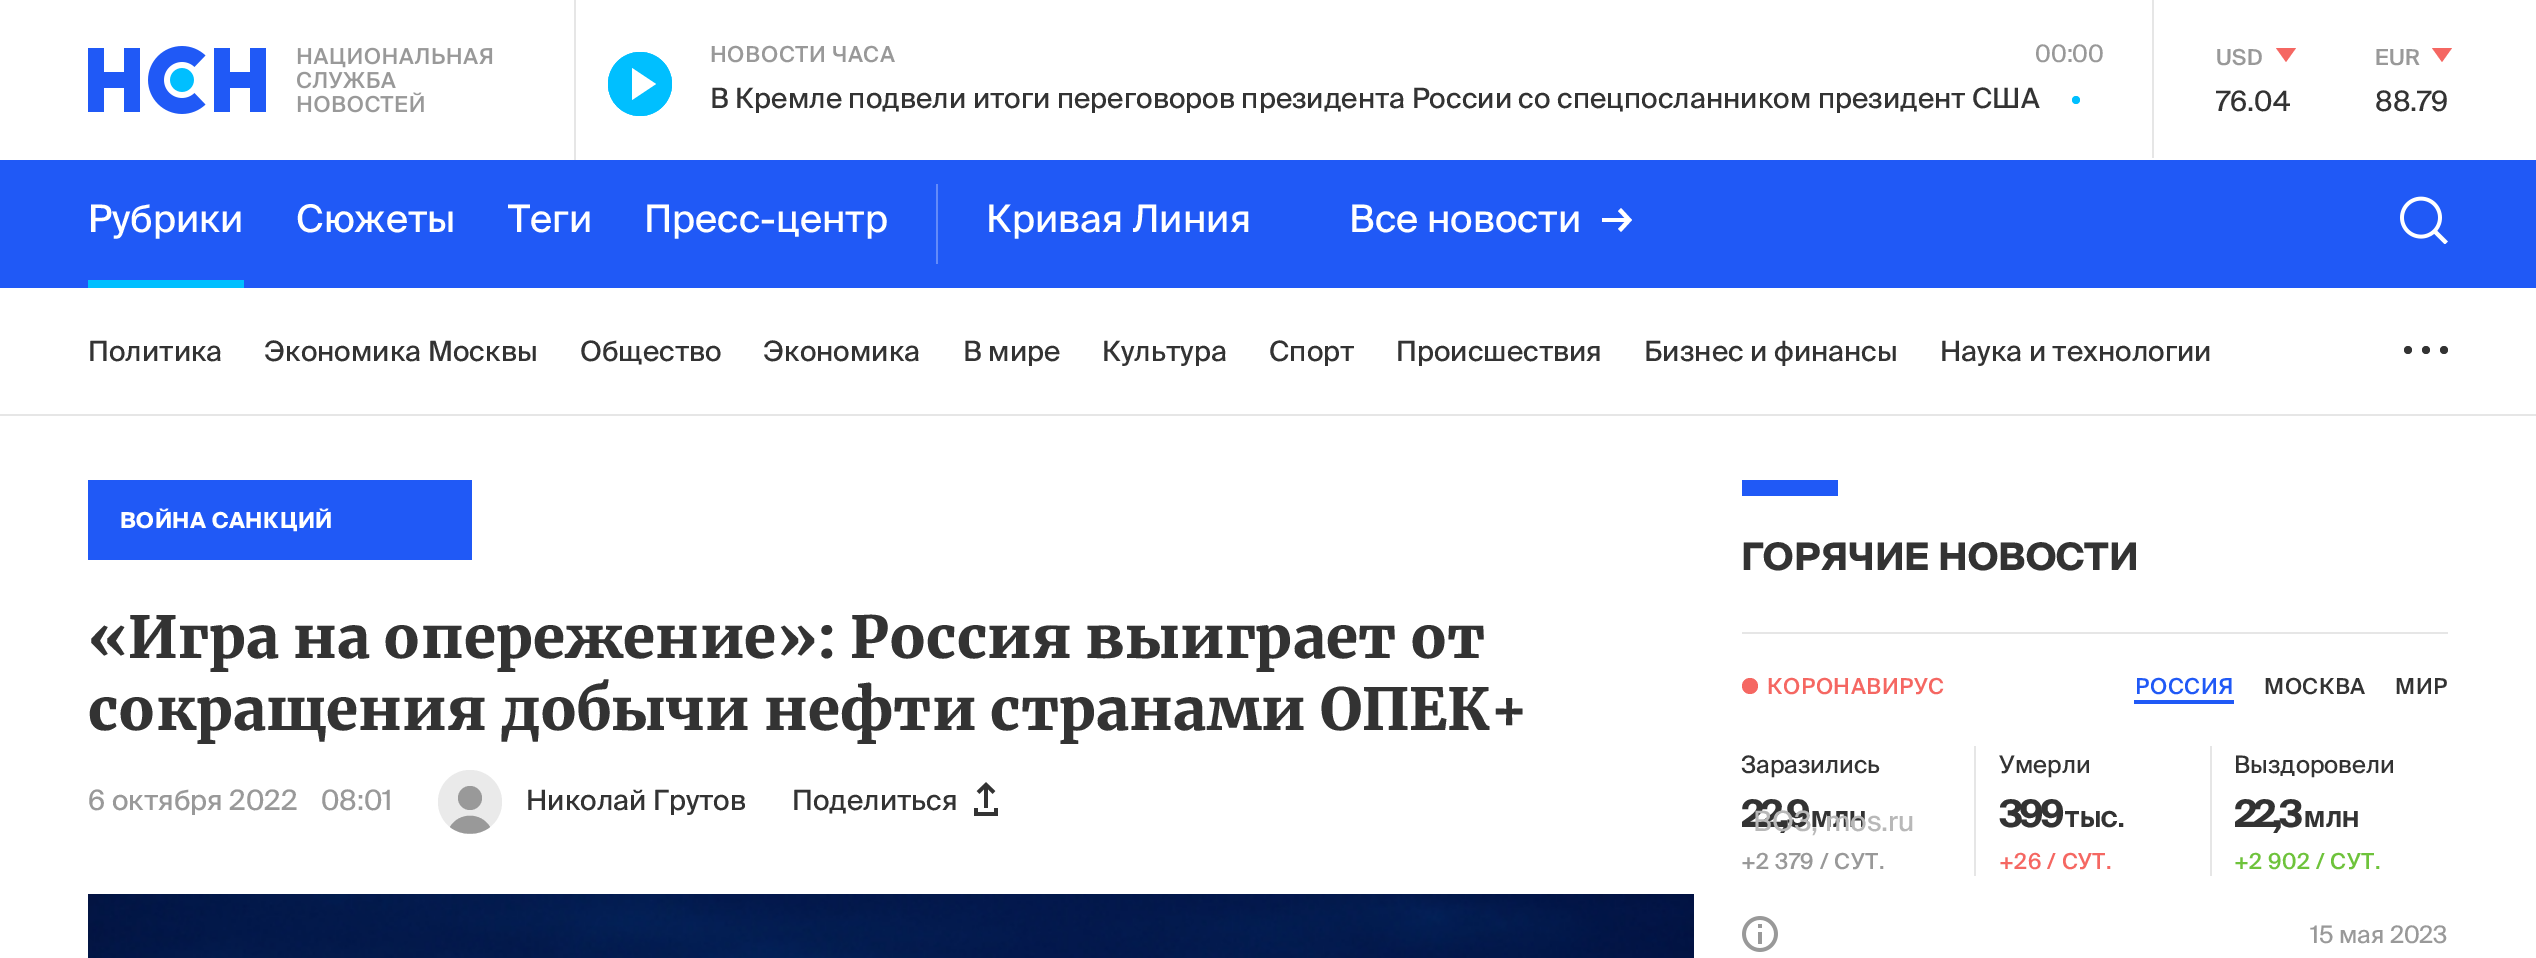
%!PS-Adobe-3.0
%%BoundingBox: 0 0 2536 958
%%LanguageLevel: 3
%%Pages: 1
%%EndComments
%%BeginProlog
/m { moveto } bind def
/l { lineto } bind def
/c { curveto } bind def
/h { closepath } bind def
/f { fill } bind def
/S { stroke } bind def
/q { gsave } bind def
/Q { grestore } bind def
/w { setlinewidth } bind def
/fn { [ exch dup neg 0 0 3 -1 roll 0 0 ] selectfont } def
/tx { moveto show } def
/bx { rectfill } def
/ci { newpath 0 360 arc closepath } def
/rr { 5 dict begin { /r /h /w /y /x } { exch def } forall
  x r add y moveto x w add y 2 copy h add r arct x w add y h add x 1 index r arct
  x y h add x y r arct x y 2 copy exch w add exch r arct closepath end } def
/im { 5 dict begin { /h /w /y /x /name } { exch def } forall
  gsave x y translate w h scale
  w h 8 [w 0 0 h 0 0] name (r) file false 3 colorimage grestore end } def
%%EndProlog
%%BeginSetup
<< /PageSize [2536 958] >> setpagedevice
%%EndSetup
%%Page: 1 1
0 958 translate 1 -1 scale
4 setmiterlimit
1 setgray
0 0 2536 958 bx
(image0.raw) 88 46 405 68 im
0.902 setgray
574 0 2 160 bx
0 0.749 1 setrgbcolor
640 84 32 ci f
1 setgray
656 84 m 632 100 l 632 68 l h f
q
608 52 64 64 32 rr clip newpath
0 0.749 1 setrgbcolor
4 w
610 84 m 610 67.5 623.5 54 640 54 c 656.5 54 670 67.5 670 84 c 670 100.5 656.5 114 640 114 c 623.5 114 610 101 610 84.5 c S
Q
/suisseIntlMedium-Medium 22 fn
0.6 setgray
710 62 m 0.5 0 (НОВОСТИ ЧАСА) ashow
/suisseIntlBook-Regular 24 fn
(00:00) 2035 62 tx
/suisseIntlBook-Regular 28 fn
0.2 setgray
(В Кремле подвели итоги переговоров президента России со спецпосланником президент США) 710 108 tx
0 0.749 1 setrgbcolor
2076 100 4 ci f
0.902 setgray
2152 0 2 158 bx
/suisseIntlMedium-Medium 22 fn
0.6 setgray
2216 65 m 0.5 0 (USD) ashow
0.961 0.404 0.384 setrgbcolor
2276 48 m 2296 48 l 2286 62 l h f
/suisseIntlBook-Regular 28 fn
0.2 setgray
(76.04) 2216 111 tx
/suisseIntlMedium-Medium 22 fn
0.6 setgray
2375 65 m 0.5 0 (EUR) ashow
0.961 0.404 0.384 setrgbcolor
2432 48 m 2452 48 l 2442 62 l h f
/suisseIntlBook-Regular 28 fn
0.2 setgray
(88.79) 2375 111 tx
0.125 0.349 0.965 setrgbcolor
0 160 2536 128 bx
0 0.749 1 setrgbcolor
88 280 156 8 bx
/suisseIntlBook-Regular 38 fn
1 setgray
(Рубрики) 88 232 tx
(Сюжеты) 296 232 tx
(Теги) 508 232 tx
(Пресс-центр) 644 232 tx
0.388 0.545 0.976 setrgbcolor
936 184 2 80 bx
1 setgray
(Кривая Линия) 986 232 tx
(Все новости) 1349 232 tx
1621 232 m 1618 229 l 1626.5 220 l 1618 211 l 1621 208 l 1632 220 l h f
1602 218 26 4 bx
(image1.raw) 2400 196 48 48 im
0.902 setgray
0 414 2536 2 bx
/suisseIntlBook-Regular 28 fn
0.2 setgray
(Политика) 88 361 tx
(Экономика Москвы) 264 361 tx
(Общество) 580 361 tx
(Экономика) 763 361 tx
(В мире) 963 361 tx
(Культура) 1102 361 tx
(Спорт) 1269 361 tx
(Происшествия) 1396 361 tx
(Бизнес и финансы) 1644 361 tx
(Наука и технологии) 1940 361 tx
2408 350 4 ci f
2426 350 4 ci f
2444 350 4 ci f
0.125 0.349 0.965 setrgbcolor
88 480 384 80 bx
/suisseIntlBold-Bold 22 fn
1 setgray
120 528 m 0.5 0 (ВОЙНА САНКЦИЙ) ashow
/Merriweather-Black 58 fn
0.2 setgray
(«Игра на опережение»: Россия выиграет от) 88 658 tx
(сокращения добычи нефти странами ОПЕК+) 88 730 tx
/suisseIntlBook-Regular 28 fn
0.6 setgray
(6 октября 2022) 88 810 tx
(08:01) 321 810 tx
0.918 setgray
470 802 32 ci f
0.6 setgray
470 798 12 ci f
490 827 m 479 836 461 836 450 827 c 459 812 481 812 490 827 c h f
0.2 setgray
(Николай Грутов) 526 810 tx
(Поделиться) 792 810 tx
(image2.raw) 974 782 24 34 im
(image3.raw) 88 894 1606 64 im
0.125 0.349 0.965 setrgbcolor
1742 480 96 16 bx
/suisseIntlBold-Bold 38 fn
0.2 setgray
(ГОРЯЧИЕ НОВОСТИ) 1741 570 tx
0.902 setgray
1742 632 706 2 bx
0.961 0.404 0.384 setrgbcolor
1750 686 8 ci f
/suisseIntlMedium-Medium 22 fn
1767 694 m 0.5 0 (КОРОНАВИРУС) ashow
0.125 0.349 0.965 setrgbcolor
2135 694 m 0.5 0 (РОССИЯ) ashow
2134 700 100 4 bx
0.2 setgray
2264 694 m 0.5 0 (МОСКВА) ashow
2395 694 m 0.5 0 (МИР) ashow
0.902 setgray
1974 746 2 130 bx
/suisseIntlBook-Regular 24 fn
0.2 setgray
(Заразились) 1741 773 tx
/suisseIntlBold-Bold 38 fn
1741 827 m -4 0 (22,9) ashow
/suisseIntlBold-Bold 22 fn
1811 827 m 0.5 0 (МЛН) ashow
/suisseIntlMedium-Medium 22 fn
0.6 setgray
1741 869 m 0.5 0 (+2 379 / СУТ.) ashow
0.902 setgray
2210 746 2 130 bx
/suisseIntlBook-Regular 24 fn
0.2 setgray
(Умерли) 1999 773 tx
/suisseIntlBold-Bold 38 fn
1999 827 m -4 0 (399) ashow
/suisseIntlBold-Bold 22 fn
2065 827 m 0.5 0 (ТЫС.) ashow
/suisseIntlMedium-Medium 22 fn
0.961 0.404 0.384 setrgbcolor
1999 869 m 0.5 0 (+26 / СУТ.) ashow
/suisseIntlBook-Regular 24 fn
0.2 setgray
(Выздоровели) 2234 773 tx
/suisseIntlBold-Bold 38 fn
2234 827 m -4 0 (22,3) ashow
/suisseIntlBold-Bold 22 fn
2304 827 m 0.5 0 (МЛН) ashow
/suisseIntlMedium-Medium 22 fn
0.431 0.765 0.231 setrgbcolor
2234 869 m 0.5 0 (+2 902 / СУТ.) ashow
/suisseIntlBook-Regular 28 fn
0.722 setgray
(ВОЗ, mos.ru) 1753 831 tx
(image4.raw) 1742 916 36 36 im
/suisseIntlBook-Regular 24 fn
0.6 setgray
(15 мая 2023) 2310 943 tx
showpage
%%EOF
